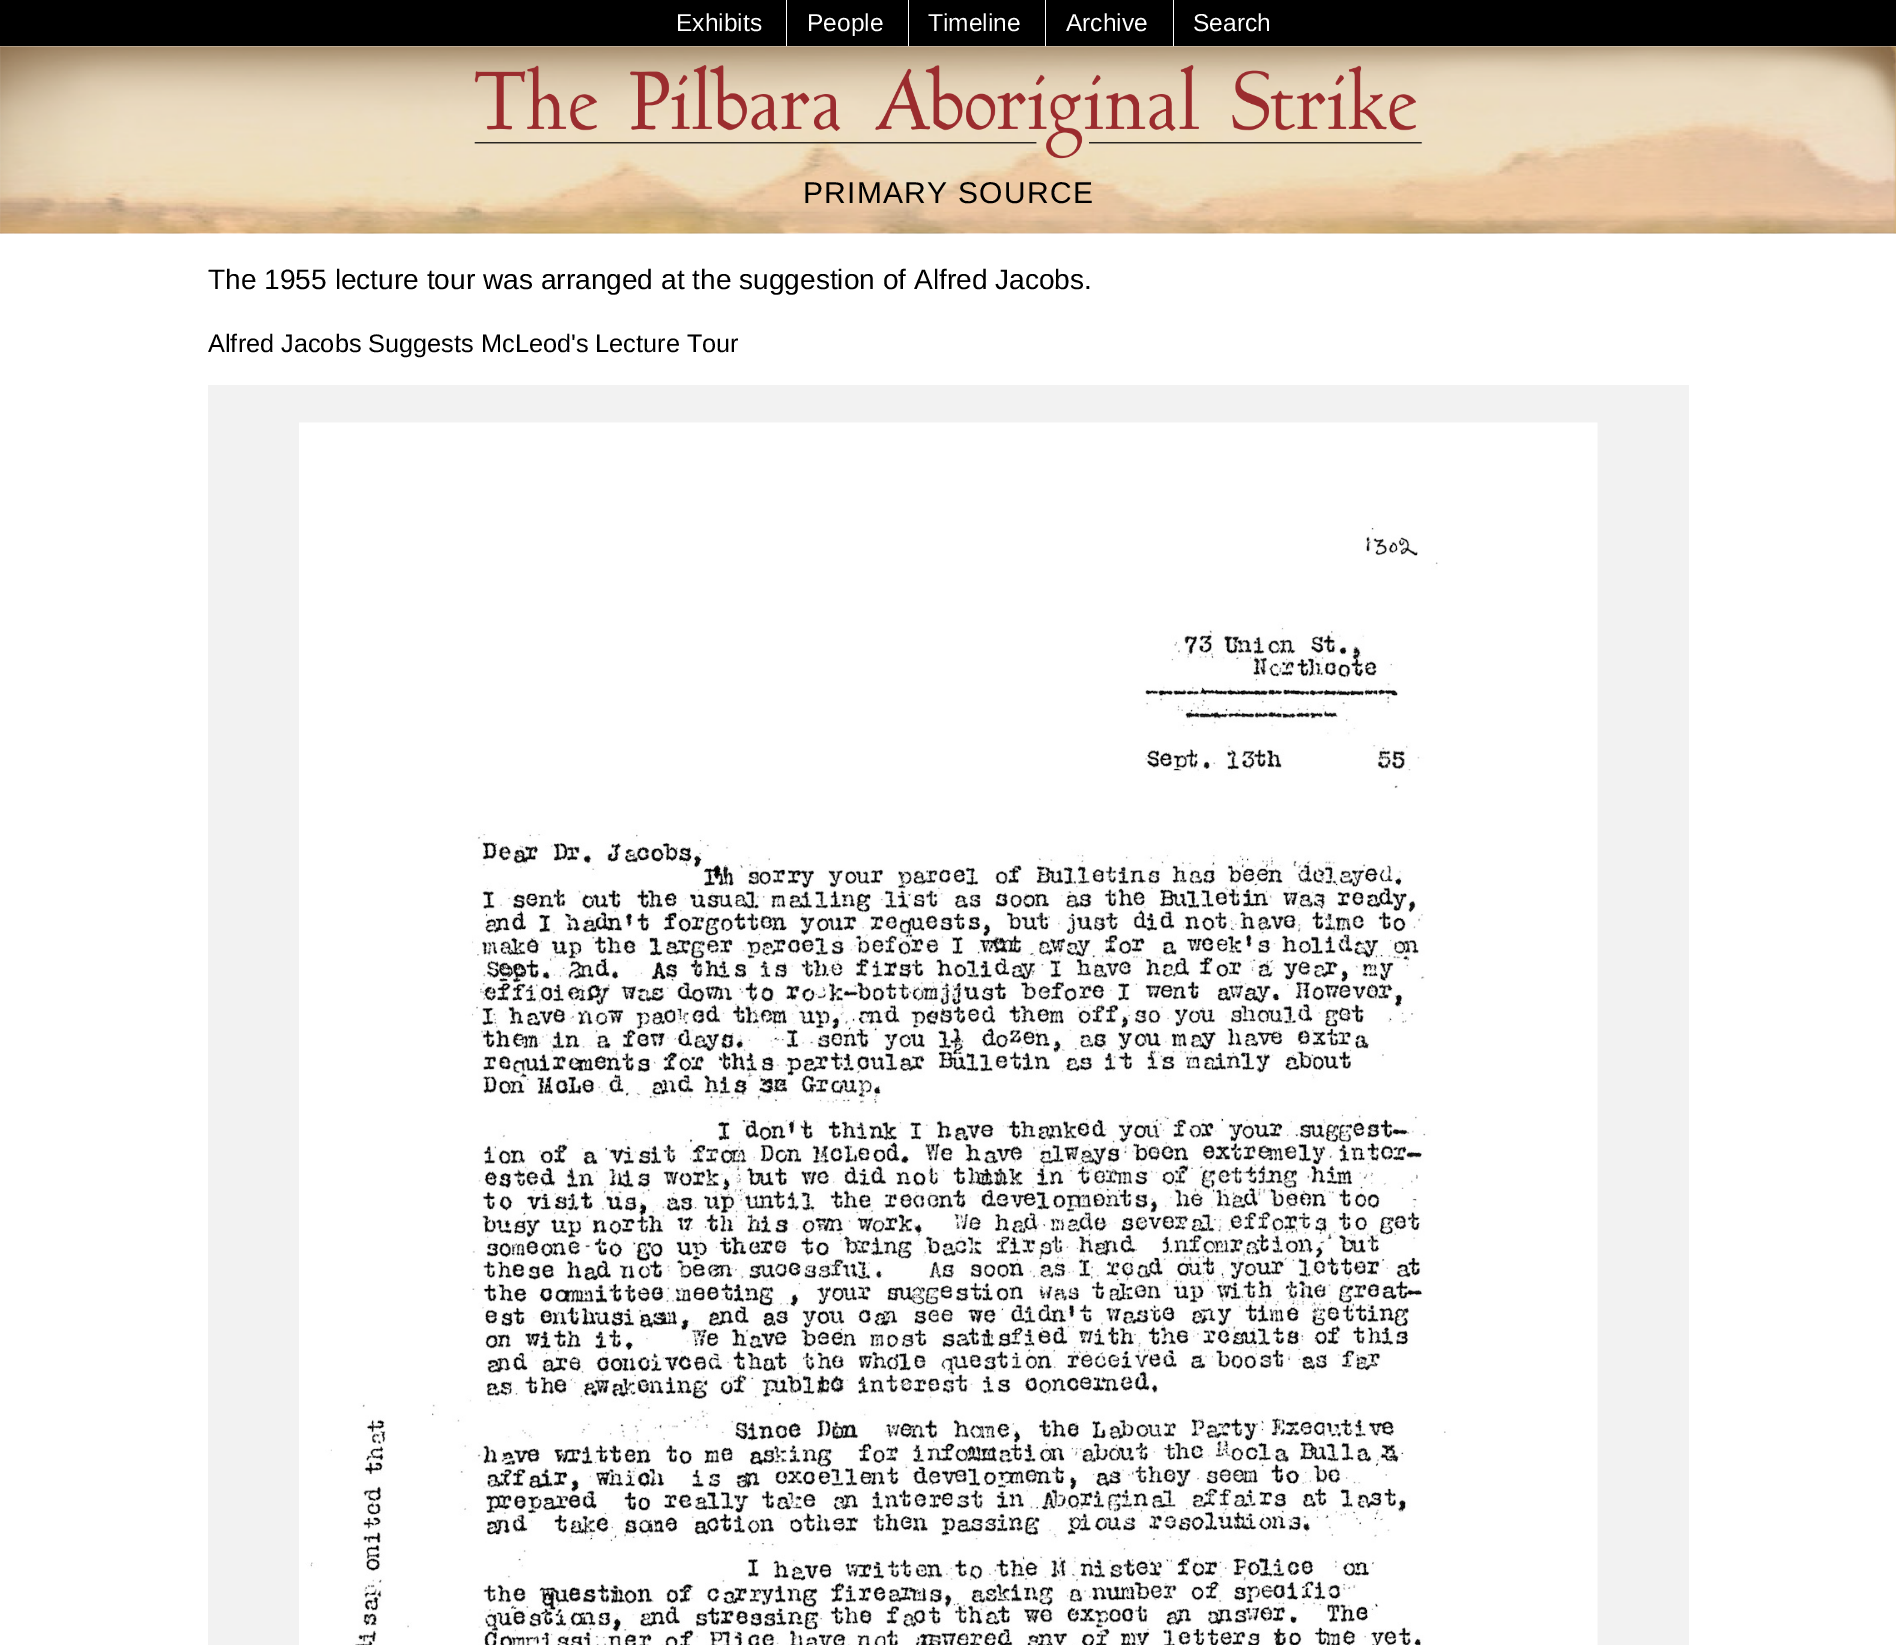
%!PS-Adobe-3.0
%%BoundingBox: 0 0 1896 1645
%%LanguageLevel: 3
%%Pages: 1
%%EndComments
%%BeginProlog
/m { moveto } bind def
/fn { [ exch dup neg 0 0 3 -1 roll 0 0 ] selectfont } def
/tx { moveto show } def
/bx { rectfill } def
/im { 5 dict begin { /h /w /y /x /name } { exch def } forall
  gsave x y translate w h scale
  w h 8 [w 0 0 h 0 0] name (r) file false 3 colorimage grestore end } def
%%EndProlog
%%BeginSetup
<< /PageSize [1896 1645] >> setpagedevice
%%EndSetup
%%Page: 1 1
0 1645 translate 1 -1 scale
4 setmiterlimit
1 setgray
0 0 1896 1645 bx
0 setgray
0 0 1896 46 bx
/LiberationSans-Regular 24.5 fn
1 setgray
(Exhibits) 676 31 tx
786 0 1 46 bx
(People) 807 31 tx
908 0 1 46 bx
(Timeline) 928 31 tx
1045 0 1 46 bx
(Archive) 1066 31 tx
1173 0 1 46 bx
(Search) 1193 31 tx
(image0.raw) 0 46 1896 188 im
(image1.raw) 474 65 949 94 im
/LiberationSans-Regular 30 fn
0 setgray
803 203 m 1.25 0 (PRIMARY SOURCE) ashow
/LiberationSans-Regular 28.1 fn
(The 1955 lecture tour was arranged at the suggestion of Alfred Jacobs.) 208 289 tx
/LiberationSans-Regular 25.3 fn
(Alfred Jacobs Suggests McLeod's Lecture Tour) 208 352 tx
0.949 setgray
208 385 1481 1260 bx
(image2.raw) 299 422 1299 1223 im
showpage
%%EOF
